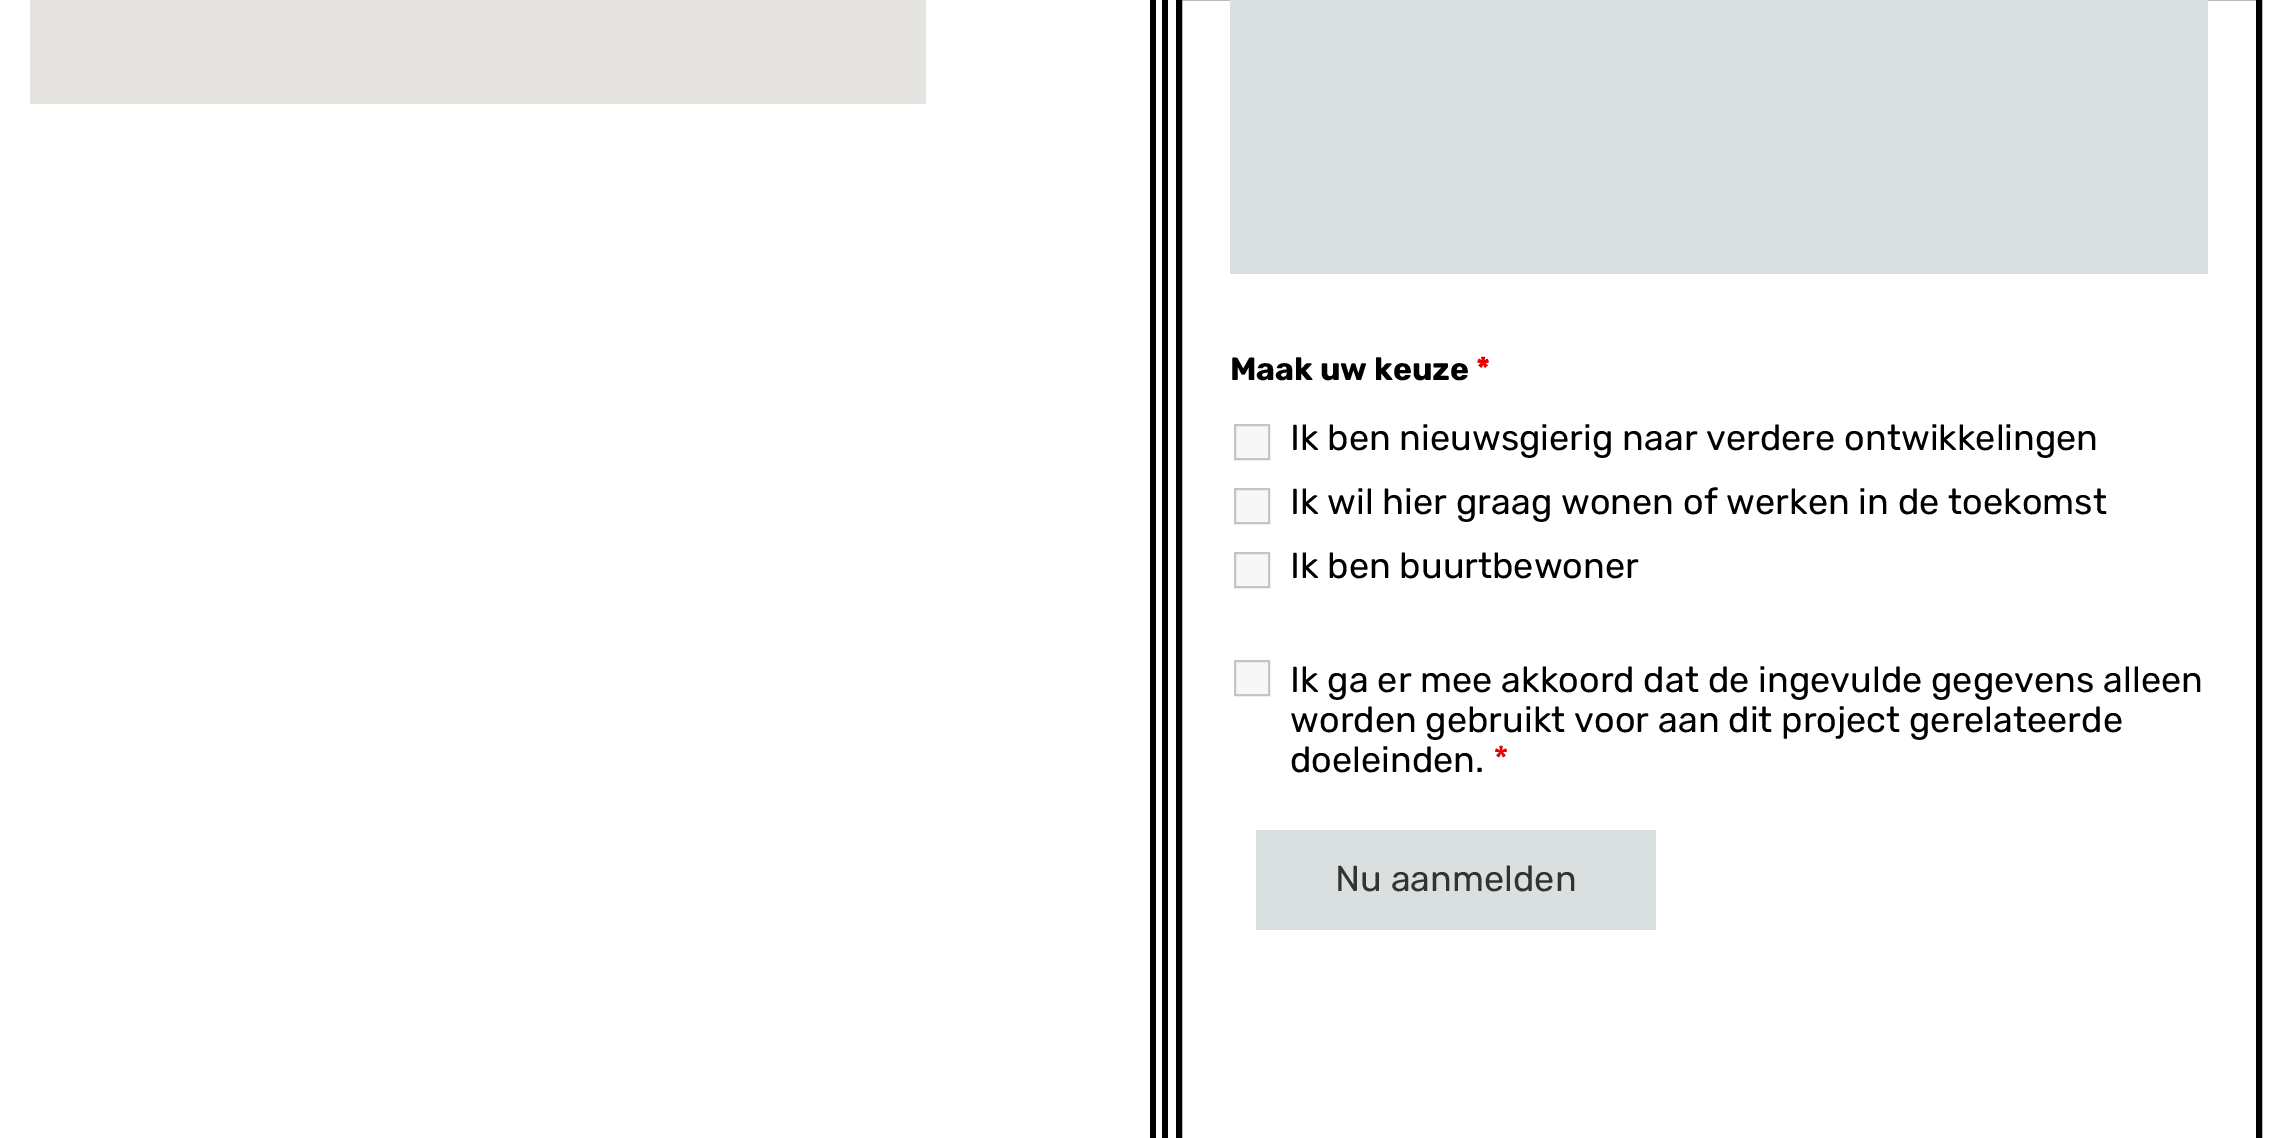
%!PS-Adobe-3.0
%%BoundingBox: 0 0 2291 1138
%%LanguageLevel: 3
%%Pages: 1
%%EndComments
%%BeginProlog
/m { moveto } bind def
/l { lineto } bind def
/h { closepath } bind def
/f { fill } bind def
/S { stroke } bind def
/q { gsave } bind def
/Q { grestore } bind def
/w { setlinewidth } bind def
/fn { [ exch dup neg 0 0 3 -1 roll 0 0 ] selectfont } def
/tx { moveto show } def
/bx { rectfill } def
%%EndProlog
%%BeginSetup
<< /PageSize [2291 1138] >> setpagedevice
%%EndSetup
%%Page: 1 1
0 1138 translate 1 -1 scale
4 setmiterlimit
1 setgray
0 0 2291 1138 bx
0.898 0.89 0.875 setrgbcolor
30 0 896 104 bx
0 setgray
6 w
1179 -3 1080 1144 rectstroke
1150 0 6 1138 bx
1162 0 6 1138 bx
0.855 0.878 0.875 setrgbcolor
1230 0 978 274 bx
/Rubik-Bold 32 fn
0 setgray
(Maak uw keuze) 1230 380 tx
0.91 0 0 setrgbcolor
(*) 1476 380 tx
0.969 setgray
1235 425 m 1269 425 l 1269 459 l 1235 459 l h q f Q
0.769 setgray
2 w
S
/Rubik-Regular 36 fn
0 setgray
(Ik ben nieuwsgierig naar verdere ontwikkelingen) 1290 450 tx
0.969 setgray
1235 489 m 1269 489 l 1269 523 l 1235 523 l h q f Q
0.769 setgray
S
0 setgray
(Ik wil hier graag wonen of werken in de toekomst) 1290 514 tx
0.969 setgray
1235 553 m 1269 553 l 1269 587 l 1235 587 l h q f Q
0.769 setgray
S
0 setgray
(Ik ben buurtbewoner) 1290 578 tx
0.969 setgray
1235 661 m 1269 661 l 1269 695 l 1235 695 l h q f Q
0.769 setgray
S
0 setgray
(Ik ga er mee akkoord dat de ingevulde gegevens alleen) 1290 692 tx
(worden gebruikt voor aan dit project gerelateerde) 1290 732 tx
(doeleinden.) 1290 772 tx
0.91 0 0 setrgbcolor
(*) 1493 772 tx
0.855 0.878 0.875 setrgbcolor
1256 830 400 100 bx
0.2 setgray
(Nu aanmelden) 1335 891 tx
showpage
%%EOF
